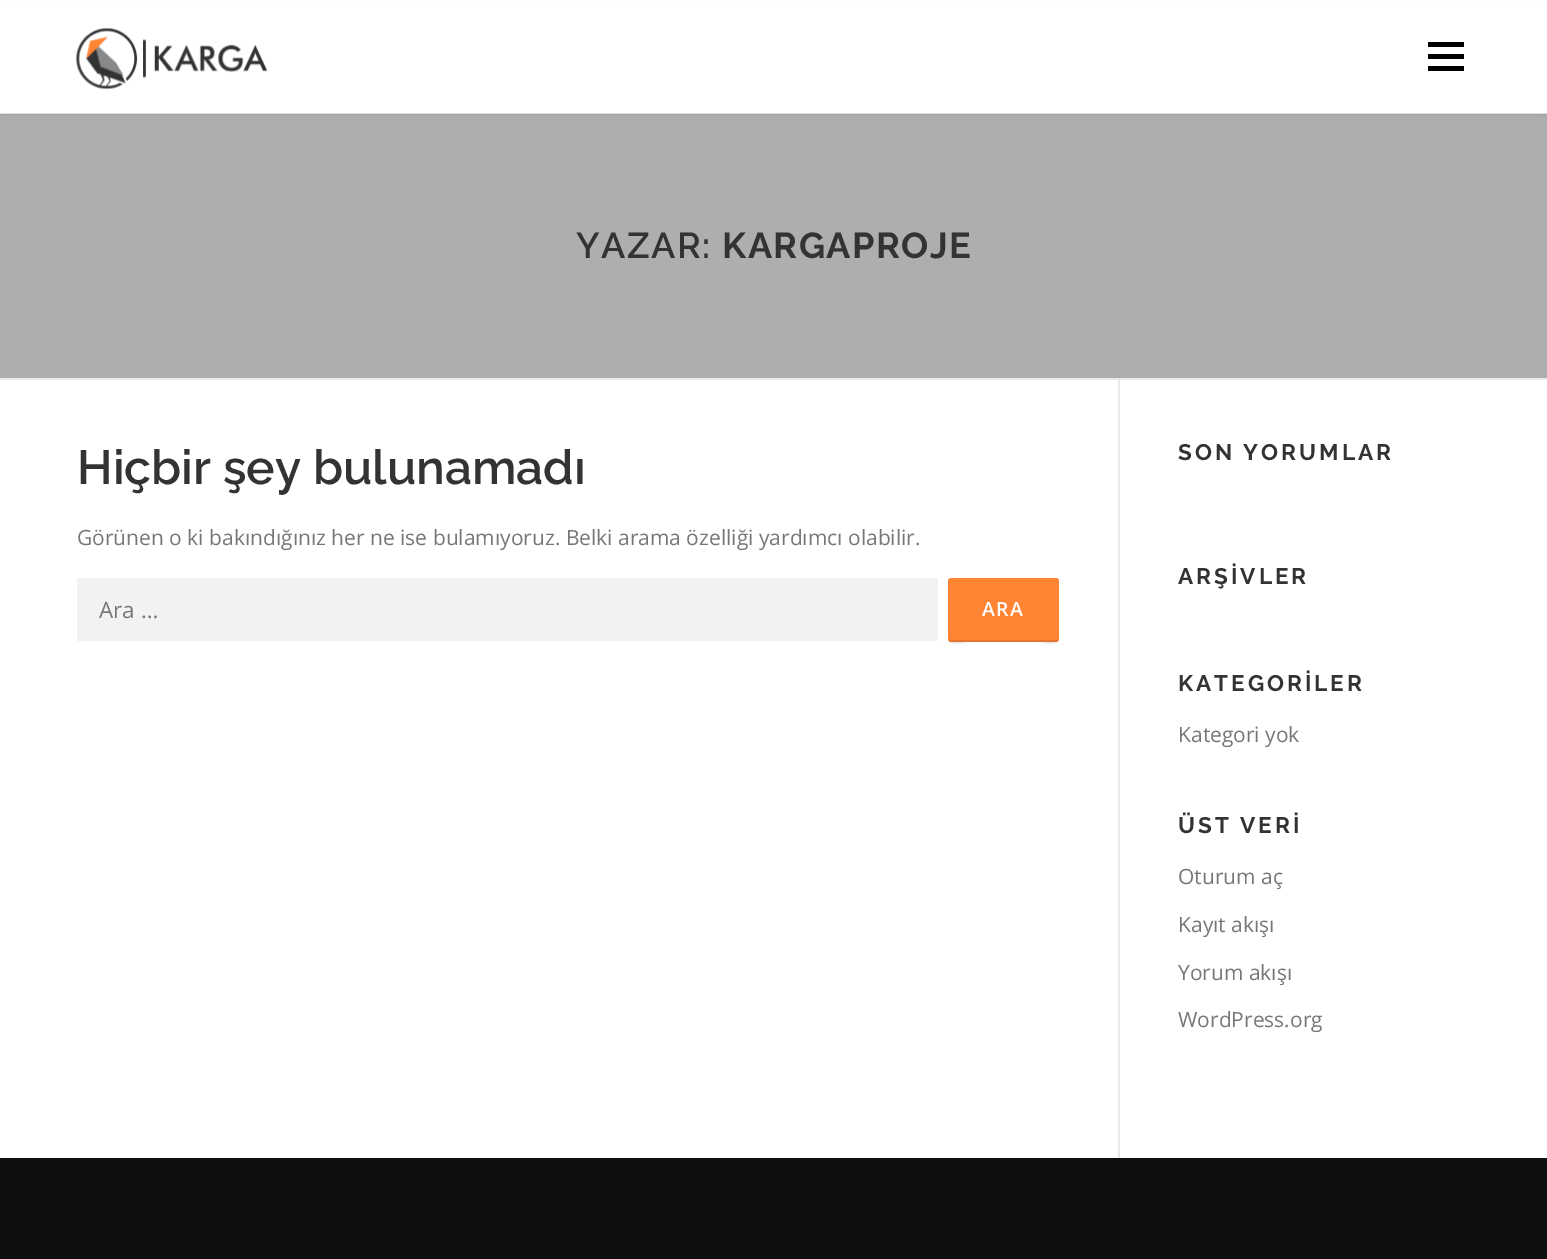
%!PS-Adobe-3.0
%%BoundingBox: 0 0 1547 1259
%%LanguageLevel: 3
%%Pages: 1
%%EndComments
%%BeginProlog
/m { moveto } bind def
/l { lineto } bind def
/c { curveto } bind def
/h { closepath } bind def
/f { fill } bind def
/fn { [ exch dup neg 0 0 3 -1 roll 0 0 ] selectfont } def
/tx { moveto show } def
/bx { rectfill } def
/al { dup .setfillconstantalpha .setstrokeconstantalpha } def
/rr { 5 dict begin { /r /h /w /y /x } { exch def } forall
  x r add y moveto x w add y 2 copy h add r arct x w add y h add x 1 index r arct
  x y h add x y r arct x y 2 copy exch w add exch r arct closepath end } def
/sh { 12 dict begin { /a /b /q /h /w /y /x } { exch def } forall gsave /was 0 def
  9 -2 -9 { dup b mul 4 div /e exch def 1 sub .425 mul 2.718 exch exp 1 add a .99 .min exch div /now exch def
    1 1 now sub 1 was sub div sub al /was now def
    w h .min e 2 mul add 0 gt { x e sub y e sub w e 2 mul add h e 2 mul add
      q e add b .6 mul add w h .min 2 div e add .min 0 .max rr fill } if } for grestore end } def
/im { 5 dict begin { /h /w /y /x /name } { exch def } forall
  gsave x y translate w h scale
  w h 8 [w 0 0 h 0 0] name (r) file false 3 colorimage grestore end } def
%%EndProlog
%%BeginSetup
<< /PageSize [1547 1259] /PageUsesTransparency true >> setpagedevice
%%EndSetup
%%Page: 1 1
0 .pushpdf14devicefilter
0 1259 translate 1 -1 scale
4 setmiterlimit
1 setgray
0 0 1547 1259 bx
0.682 setgray
0 115 1547 263 bx
0.914 setgray
0 113 1547 1 bx
0.639 setgray
0 114 1547 1 bx
0.196 setgray
0 8 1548 112 0 7.5 0.06 sh
1 setgray
0 2 1547 111 bx
(image0.raw) 76 28 191 62 im
0 setgray
1428 54 36 5 bx
1428 42 36 5 bx
1428 66 36 5 bx
0.914 setgray
0 378 1547 2 bx
/Raleway-SemiBold 36 fn
0.2 setgray
576 258 m 1.5 0 (YAZAR:) ashow
/Raleway-Bold 36 fn
722 258 m 1.5 0 (KARGAPROJE) ashow
/Raleway-SemiBold 48 fn
(Hiçbir şey bulunamadı) 77 484 tx
/OpenSans-Regular 21 fn
0.467 setgray
(Görünen o ki bakındığınız her ne ise bulamıyoruz. Belki arama özelliği yardımcı olabilir.) 77 545 tx
0.949 setgray
77 578 861 63 bx
/OpenSans-Regular 22.5 fn
0.467 setgray
(Ara …) 99 618 tx
1 0.518 0.2 setrgbcolor
948 578 111 64 3 rr f
0.1 al
0 setgray
948 638 m 948 647 966 642 968 642 c 1038 642 l 1041 642 1059 647 1059 638 c 1059 639 1058 640 1056 640 c 951 640 l 949 640 948 639 948 638 c h f
/OpenSans-SemiBold 19.5 fn
1 al
1 setgray
982 616 m 1.5 0 (ARA) ashow
0.914 setgray
1118 380 2 778 bx
/Raleway-Bold 22.5 fn
0.2 setgray
1178 460 m 3 0 (SON YORUMLAR) ashow
1178 584 m 3 0 (ARŞİVLER) ashow
1178 691 m 3 0 (KATEGORİLER) ashow
/OpenSans-Regular 21 fn
0.467 setgray
(Kategori yok) 1178 742 tx
/Raleway-Bold 22.5 fn
0.2 setgray
1178 833 m 3 0 (ÜST VERİ) ashow
/OpenSans-Regular 21 fn
0.467 setgray
(Oturum aç) 1178 884 tx
(Kayıt akışı) 1178 932 tx
(Yorum akışı) 1178 980 tx
(WordPress.org) 1178 1027 tx
0.059 setgray
0 1158 1547 101 bx
.poppdf14devicefilter showpage
%%EOF
